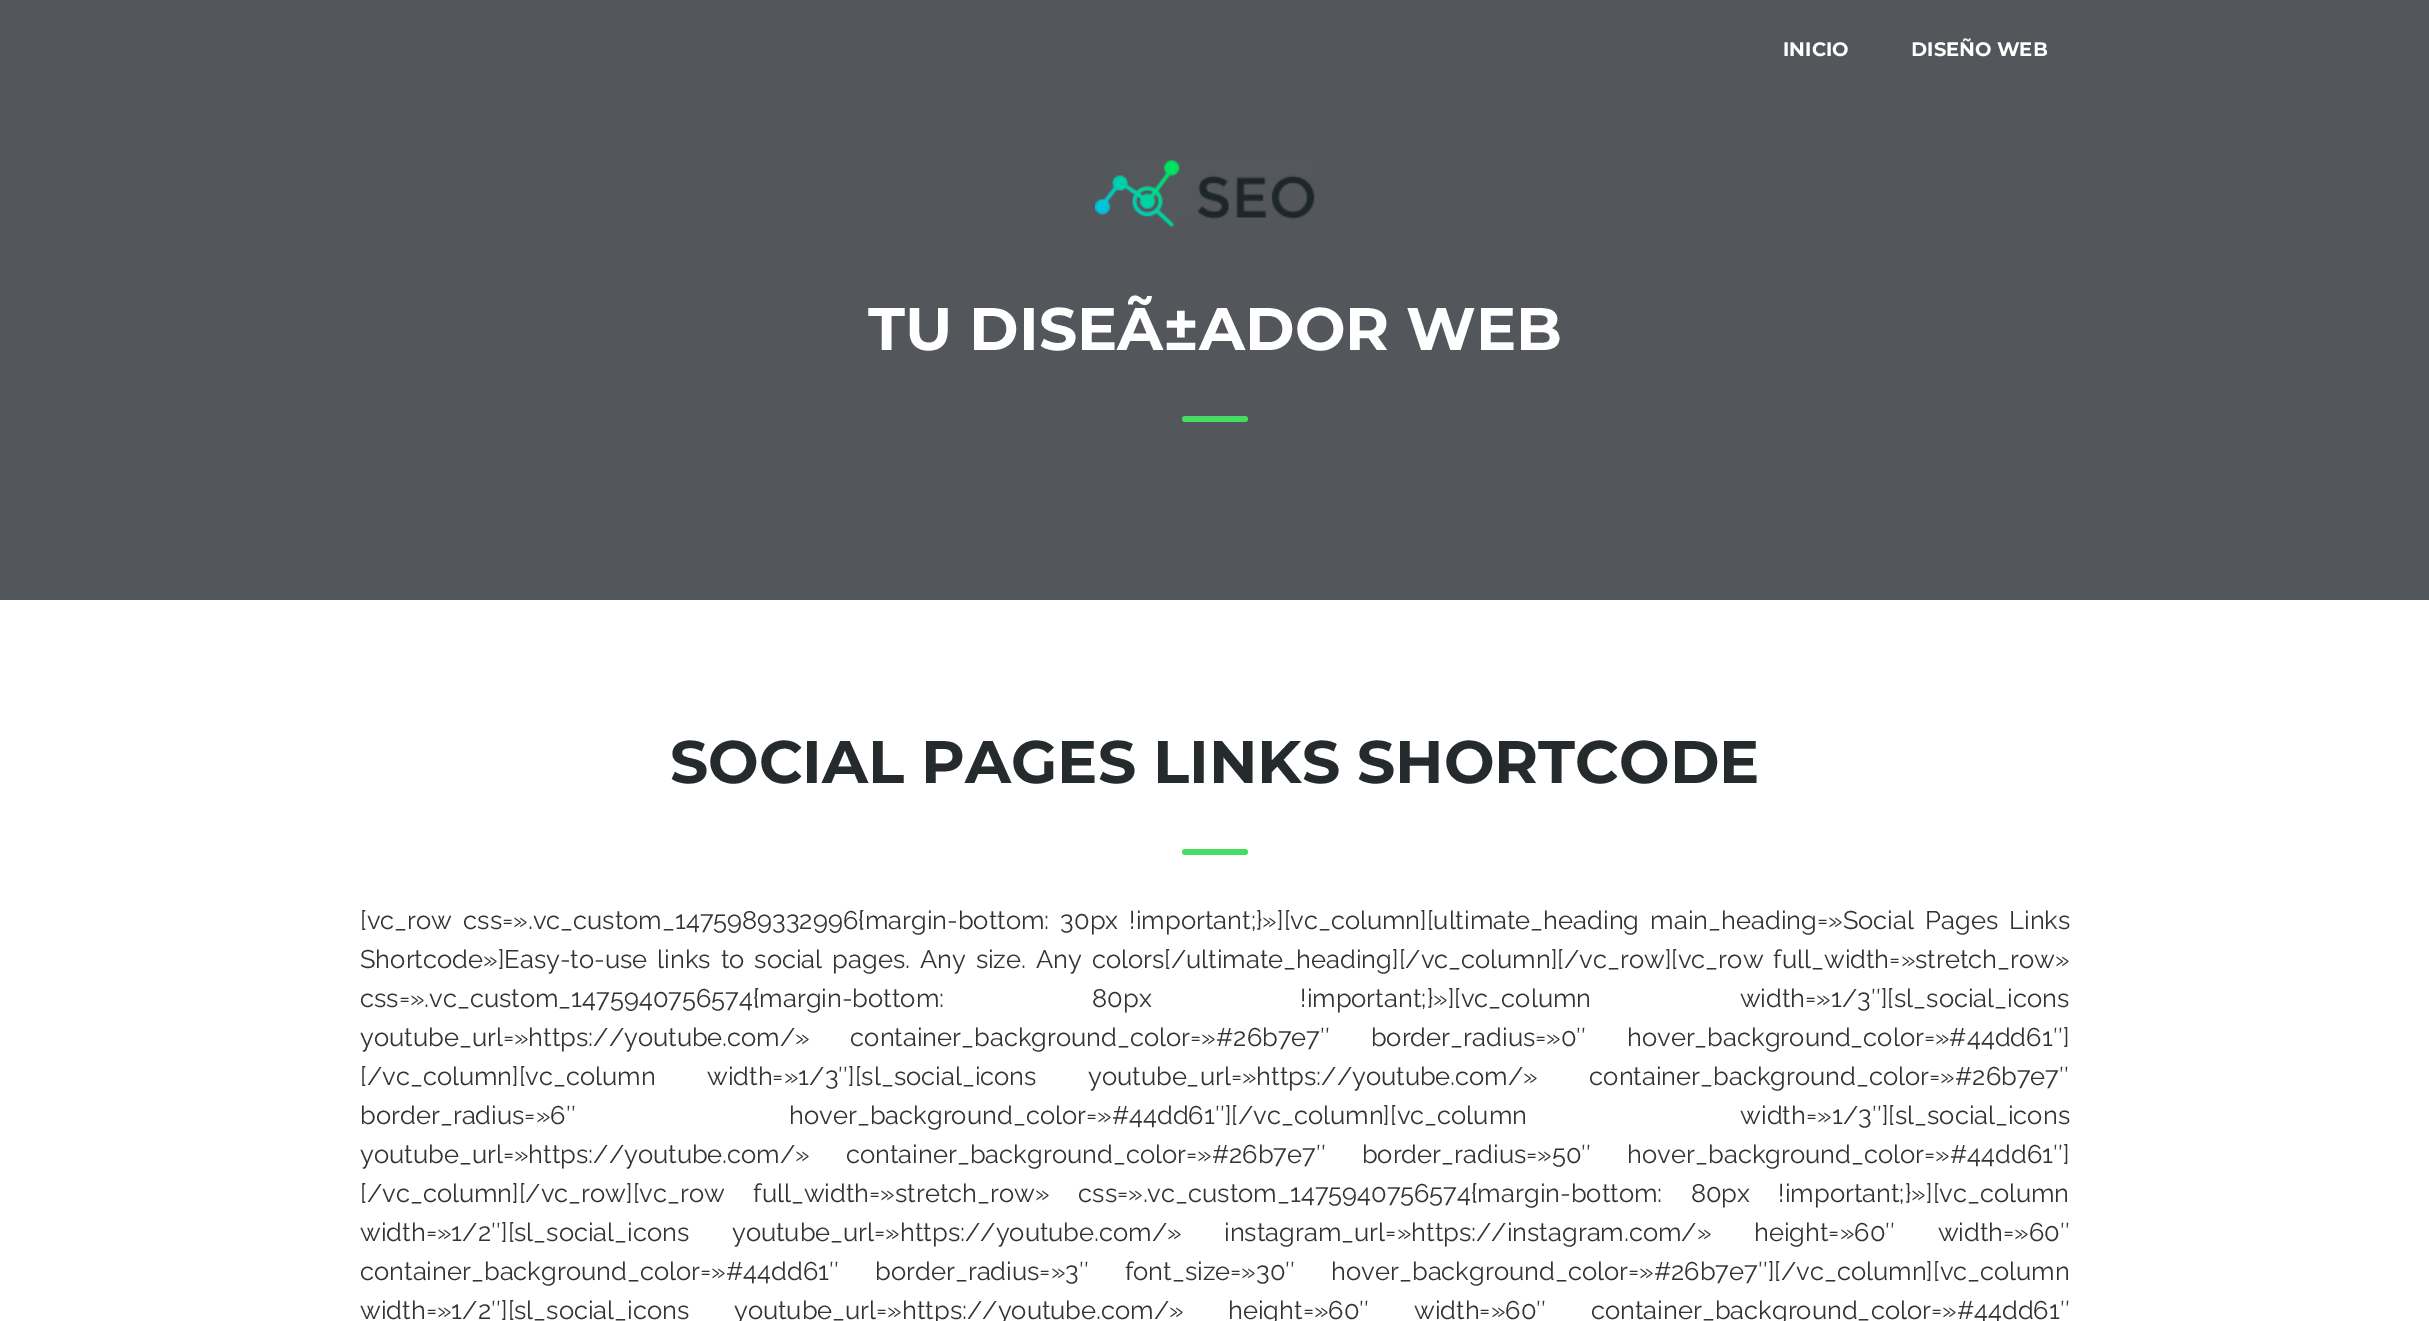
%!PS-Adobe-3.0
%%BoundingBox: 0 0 2429 1321
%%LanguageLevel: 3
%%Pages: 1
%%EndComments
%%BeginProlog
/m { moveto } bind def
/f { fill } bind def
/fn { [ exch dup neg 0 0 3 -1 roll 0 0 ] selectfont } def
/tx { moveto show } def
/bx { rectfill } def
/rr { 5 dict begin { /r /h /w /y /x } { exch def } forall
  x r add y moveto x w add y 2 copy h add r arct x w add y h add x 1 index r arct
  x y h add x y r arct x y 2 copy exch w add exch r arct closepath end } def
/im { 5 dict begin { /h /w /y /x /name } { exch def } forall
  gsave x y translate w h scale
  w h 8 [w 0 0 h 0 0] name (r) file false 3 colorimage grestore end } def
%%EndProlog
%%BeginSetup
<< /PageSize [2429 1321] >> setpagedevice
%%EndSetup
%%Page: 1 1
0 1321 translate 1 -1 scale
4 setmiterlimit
1 setgray
0 0 2429 1321 bx
0.325 0.337 0.357 setrgbcolor
0 0 2429 600 bx
/Montserrat-Bold 19.5 fn
1 setgray
(INICIO) 1783 56 tx
(DISEÑO WEB) 1911 56 tx
(image0.raw) 1095 160 220 67 im
/Montserrat-Bold 60 fn
(TU DISEÃ±ADOR WEB) 868 350 tx
0.267 0.867 0.38 setrgbcolor
1182 416 66 6 3 rr f
0.145 0.165 0.173 setrgbcolor
(SOCIAL PAGES LINKS SHORTCODE) 670 783 tx
0.267 0.867 0.38 setrgbcolor
1182 849 66 6 3 rr f
/Raleway-Regular 25.5 fn
0.2 setgray
360 929 m 4.75 0 32 ([vc_row css=».vc_custom_1475989332996{margin-bottom: 30px !important;}»][vc_column][ultimate_heading main_heading=»Social Pages Links) widthshow
360 968 m 3.5 0 32 (Shortcode»]Easy-to-use links to social pages. Any size. Any colors[/ultimate_heading][/vc_column][/vc_row][vc_row full_width=»stretch_row») widthshow
360 1007 m 142 0 32 (css=».vc_custom_1475940756574{margin-bottom: 80px !important;}»][vc_column width=»1/3″][sl_social_icons) widthshow
360 1046 m 34 0 32 (youtube_url=»https://youtube.com/» container_background_color=»#26b7e7″ border_radius=»0″ hover_background_color=»#44dd61″]) widthshow
360 1085 m 45 0 32 ([/vc_column][vc_column width=»1/3″][sl_social_icons youtube_url=»https://youtube.com/» container_background_color=»#26b7e7″) widthshow
360 1124 m 207 0 32 (border_radius=»6″ hover_background_color=»#44dd61″][/vc_column][vc_column width=»1/3″][sl_social_icons) widthshow
360 1163 m 29.5 0 32 (youtube_url=»https://youtube.com/» container_background_color=»#26b7e7″ border_radius=»50″ hover_background_color=»#44dd61″]) widthshow
360 1202 m 22 0 32 ([/vc_column][/vc_row][vc_row full_width=»stretch_row» css=».vc_custom_1475940756574{margin-bottom: 80px !important;}»][vc_column) widthshow
360 1241 m 36 0 32 (width=»1/2″][sl_social_icons youtube_url=»https://youtube.com/» instagram_url=»https://instagram.com/» height=»60″ width=»60″) widthshow
360 1280 m 29.5 0 32 (container_background_color=»#44dd61″ border_radius=»3″ font_size=»30″ hover_background_color=»#26b7e7″][/vc_column][vc_column) widthshow
360 1319 m 38 0 32 (width=»1/2″][sl_social_icons youtube_url=»https://youtube.com/» height=»60″ width=»60″ container_background_color=»#44dd61″) widthshow
showpage
%%EOF
